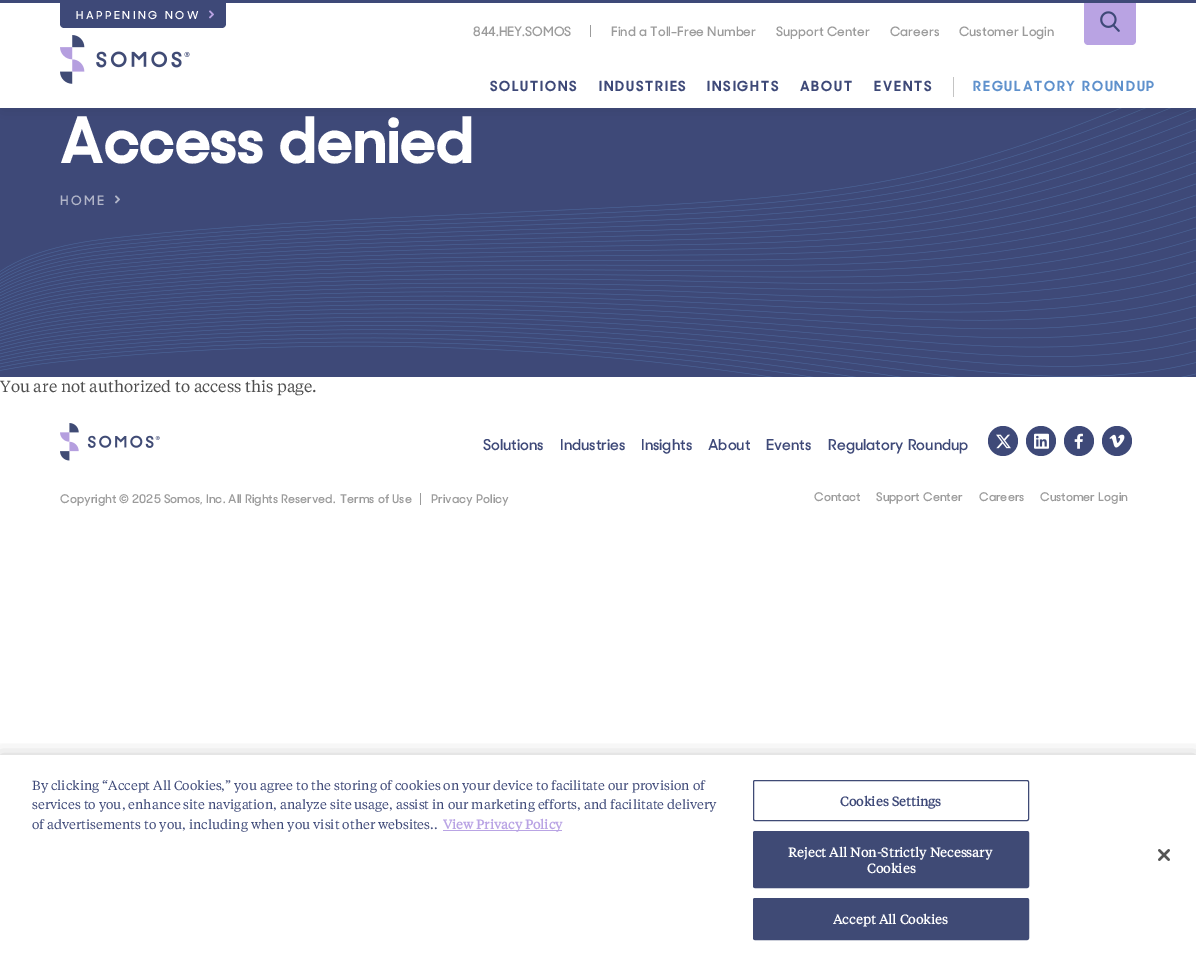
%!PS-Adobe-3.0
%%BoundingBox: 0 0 1196 960
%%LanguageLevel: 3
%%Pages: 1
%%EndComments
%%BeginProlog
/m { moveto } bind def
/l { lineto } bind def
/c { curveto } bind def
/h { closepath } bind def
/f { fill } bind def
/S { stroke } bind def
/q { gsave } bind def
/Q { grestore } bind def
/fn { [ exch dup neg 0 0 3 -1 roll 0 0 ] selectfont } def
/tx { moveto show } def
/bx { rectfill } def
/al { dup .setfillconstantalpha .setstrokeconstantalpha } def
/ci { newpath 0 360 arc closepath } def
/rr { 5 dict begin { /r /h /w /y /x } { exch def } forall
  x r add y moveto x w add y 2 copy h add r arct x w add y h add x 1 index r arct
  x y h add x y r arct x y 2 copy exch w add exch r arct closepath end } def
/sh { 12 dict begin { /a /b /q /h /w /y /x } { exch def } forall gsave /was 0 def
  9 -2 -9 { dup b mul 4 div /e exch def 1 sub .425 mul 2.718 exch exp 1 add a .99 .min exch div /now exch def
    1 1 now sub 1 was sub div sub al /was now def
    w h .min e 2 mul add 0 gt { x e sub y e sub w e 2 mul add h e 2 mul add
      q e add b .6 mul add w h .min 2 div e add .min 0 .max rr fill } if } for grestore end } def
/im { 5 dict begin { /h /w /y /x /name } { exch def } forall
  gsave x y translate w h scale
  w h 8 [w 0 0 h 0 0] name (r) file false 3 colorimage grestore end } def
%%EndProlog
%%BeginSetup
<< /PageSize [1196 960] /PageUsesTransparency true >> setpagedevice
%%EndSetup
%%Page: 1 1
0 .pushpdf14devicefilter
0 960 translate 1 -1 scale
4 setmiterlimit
1 setgray
0 0 1196 960 bx
0.243 0.286 0.471 setrgbcolor
0 108 1196 269 bx
(image3.raw) 0 108 1196 269 im
0 setgray
2 2 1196 108 0 8 0.1 sh
1 setgray
0 3 1196 105 bx
0.243 0.286 0.471 setrgbcolor
0 0 1196 3 bx
60 3 m 226 3 l 226 24 l 226 26 224 28 222 28 c 64 28 l 62 28 60 26 60 24 c h f
/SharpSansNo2-SemiBold 11 fn
1 setgray
76 19 m 2.5 0 (HAPPENING NOW) ashow
(image0.raw) 209 10 5 9 im
(image1.raw) 60 35 130 49 im
/SharpSansNo2-SemiBold 13 fn
0.608 setgray
(844.HEY.SOMOS) 473 36 tx
590 25 1 12 bx
(Find a Toll-Free Number) 611 36 tx
(Support Center) 776 36 tx
(Careers) 890 36 tx
(Customer Login) 959 36 tx
0.725 0.639 0.89 setrgbcolor
1084 3 m 1136 3 l 1136 41 l 1136 43 1134 45 1132 45 c 1088 45 l 1086 45 1084 43 1084 41 c h f
(image2.raw) 1100 11 20 21 im
/SharpSansNo2-Bold 14 fn
0.243 0.286 0.471 setrgbcolor
490 91 m 1.75 0 (SOLUTIONS) ashow
599 91 m 1.75 0 (INDUSTRIES) ashow
707 91 m 1.75 0 (INSIGHTS) ashow
800 91 m 1.75 0 (ABOUT) ashow
874 91 m 1.75 0 (EVENTS) ashow
0.769 setgray
953 77 1 20 bx
0.373 0.569 0.8 setrgbcolor
973 91 m 1.75 0 (REGULATORY ROUNDUP) ashow
/SharpSansNo2-Bold 64 fn
1 setgray
(Access denied) 60 163 tx
/SharpSansNo2-SemiBold 13 fn
0.698 0.714 0.788 setrgbcolor
60 205 m 2.5 0 (HOME) ashow
(image4.raw) 115 195 5 9 im
/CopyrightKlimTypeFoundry-Regular 16 fn
0.31 setgray
(You are not authorized to access this page.) 0 392 tx
(image5.raw) 60 423 100 38 im
/SharpSansNo2-SemiBold 15 fn
0.243 0.286 0.471 setrgbcolor
(Solutions) 483 450 tx
(Industries) 560 450 tx
(Insights) 641 450 tx
(About) 708 450 tx
(Events) 766 450 tx
(Regulatory Roundup) 828 450 tx
1003 441 15 ci f
(image6.raw) 996 434 15 15 im
1041 441 15 ci f
(image7.raw) 1034 433 15 16 im
1079 441 15 ci f
(image8.raw) 1074 433 9 16 im
1117 441 15 ci f
(image9.raw) 1109 434 16 14 im
/SharpSansNo2-SemiBold 12 fn
0.608 setgray
(Copyright © 2025 Somos, Inc. All Rights Reserved.) 60 503 tx
(Terms of Use) 340 503 tx
420 493 1 12 bx
(Privacy Policy) 431 503 tx
(Contact) 814 501 tx
(Support Center) 876 501 tx
(Careers) 979 501 tx
(Customer Login) 1040 501 tx
q
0 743 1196 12 rectclip
0 setgray
0 755 1196 205 0 9 0.2 sh
Q
/CopyrightKlimTypeFoundry-Regular 13 fn
0.243 0.286 0.471 setrgbcolor
(By clicking “Accept All Cookies,” you agree to the storing of cookies on your device to facilitate our provision of) 32 790 tx
(services to you, enhance site navigation, analyze site usage, assist in our marketing efforts, and facilitate delivery) 32 809 tx
(of advertisements to you, including when you visit other websites..) 32 829 tx
0.725 0.643 0.894 setrgbcolor
443 830 119 1 bx
/CopyrightKlimTypeFoundry-Bold 13 fn
(View Privacy Policy) 443 829 tx
0.247 0.29 0.459 setrgbcolor
753.5 780.5 275 40 1.5 rr S
0.243 0.286 0.471 setrgbcolor
840 806 m 0.1 0 (Cookies Settings) ashow
0.247 0.29 0.459 setrgbcolor
753.5 831.5 275 56 1.5 rr q f Q
S
1 setgray
788 857 m 0.1 0 (Reject All Non-Strictly Necessary) ashow
867 873 m 0.1 0 (Cookies) ashow
0.247 0.29 0.459 setrgbcolor
753.5 898.5 275 41 1.5 rr q f Q
S
1 setgray
833 924 m 0.1 0 (Accept All Cookies) ashow
(image10.raw) 1158 849 12 12 im
.poppdf14devicefilter showpage
%%EOF
